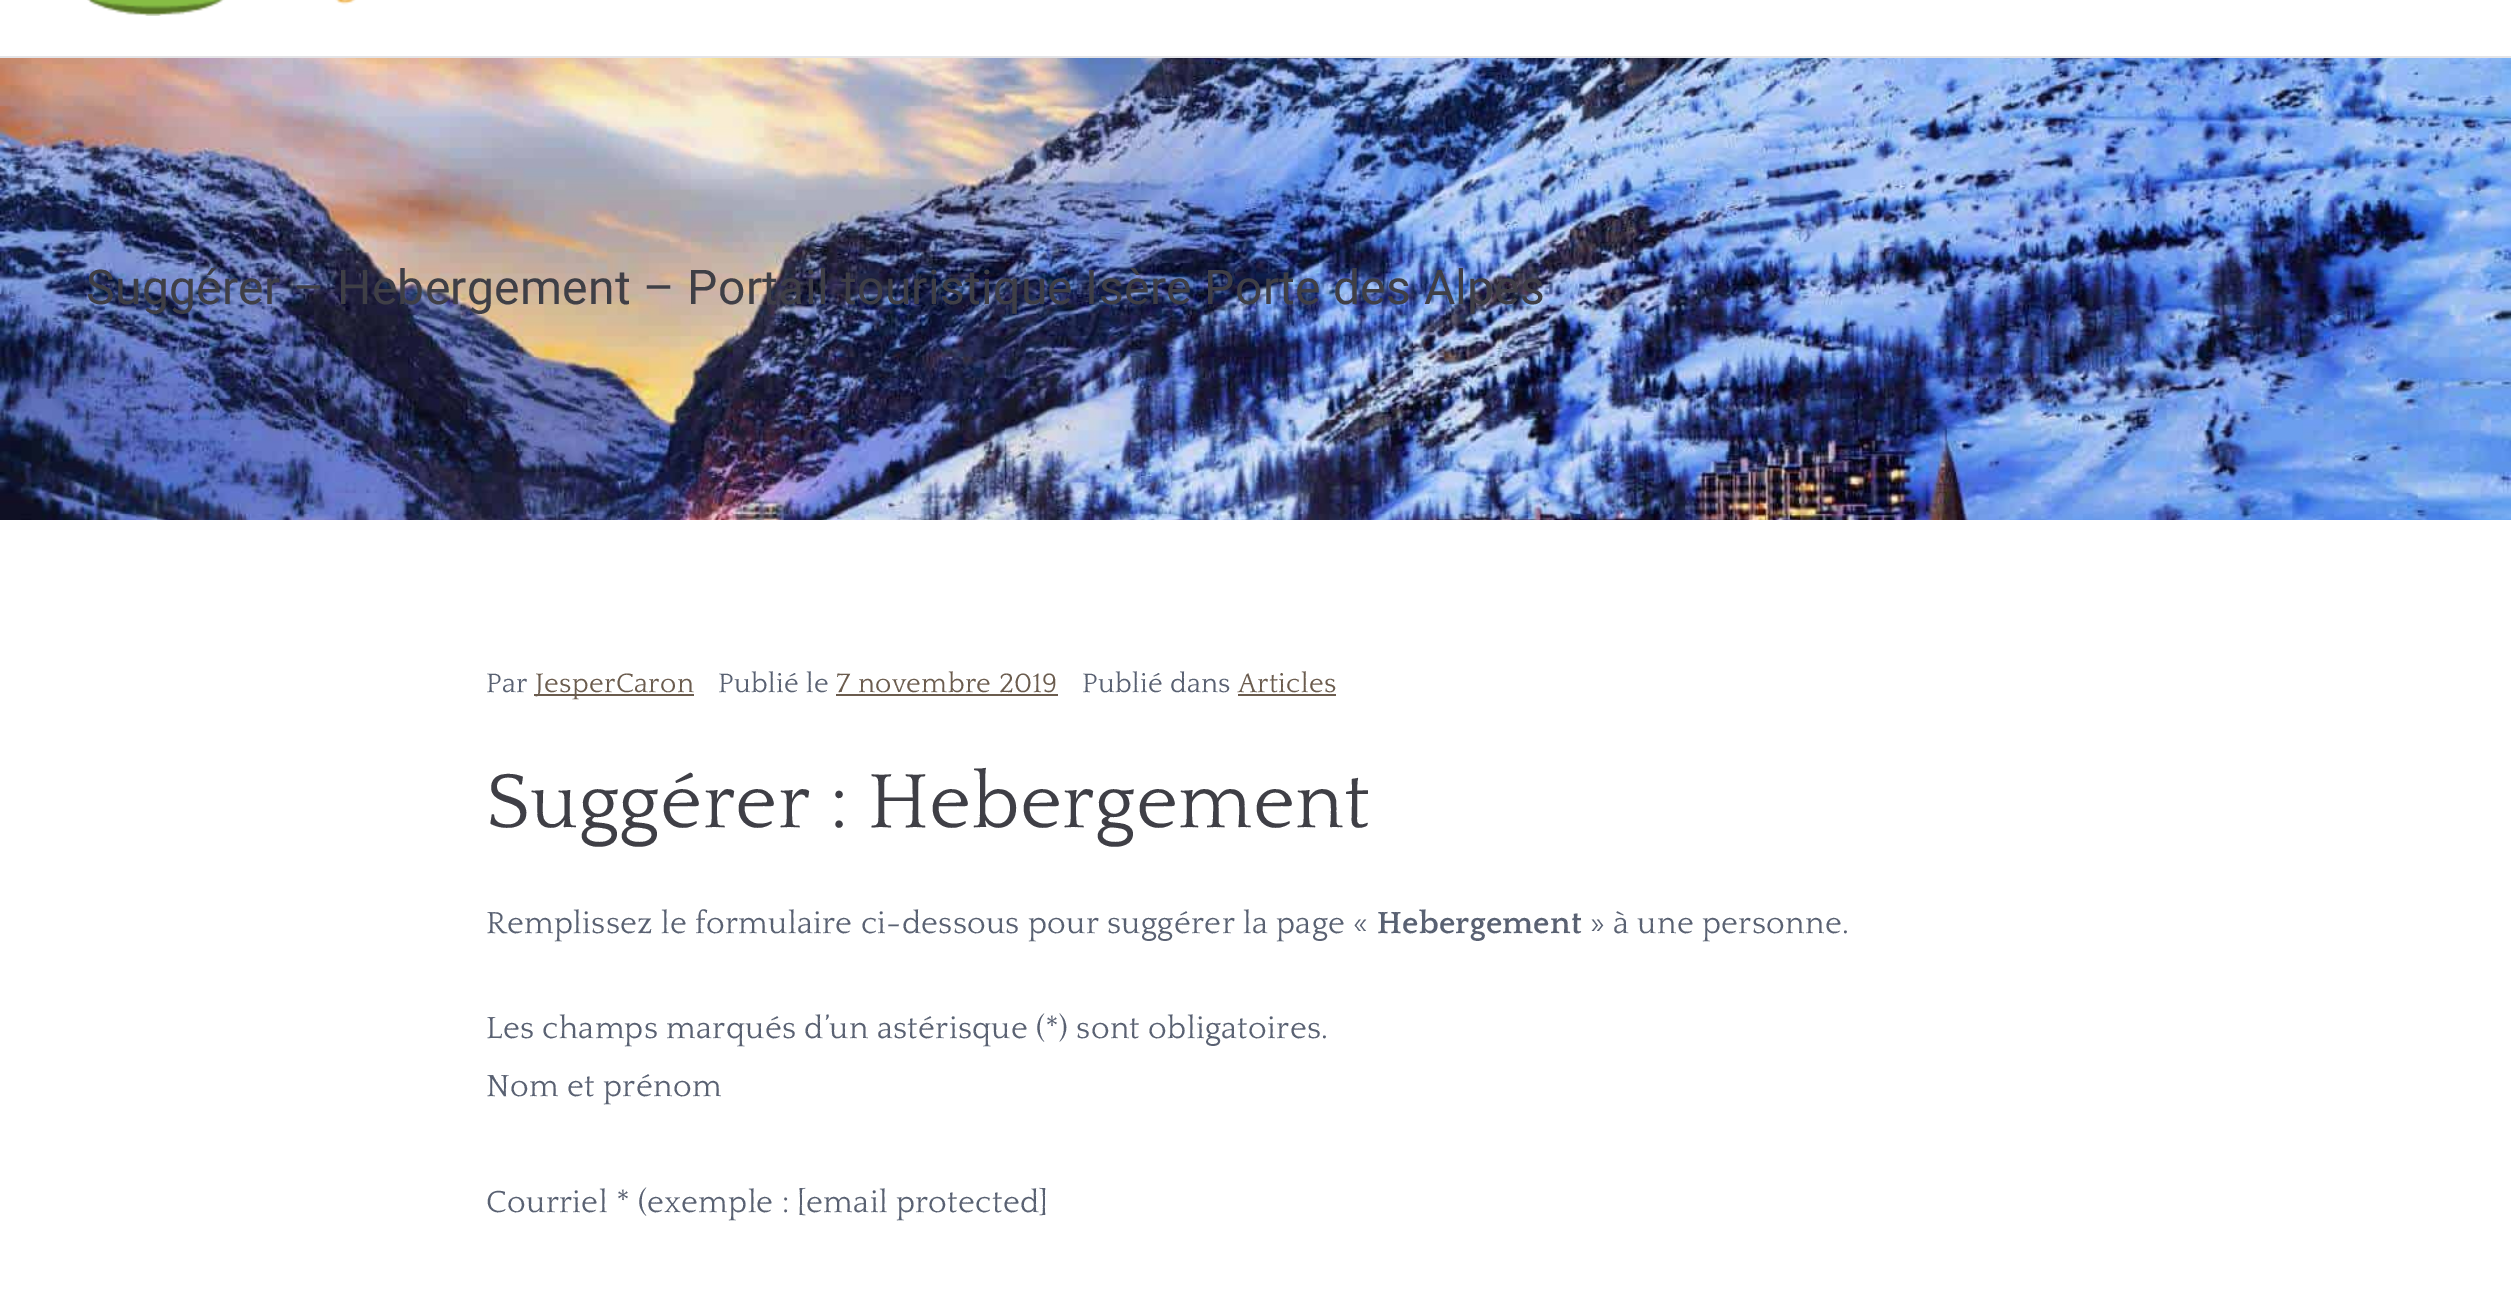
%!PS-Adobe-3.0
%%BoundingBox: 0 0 2511 1308
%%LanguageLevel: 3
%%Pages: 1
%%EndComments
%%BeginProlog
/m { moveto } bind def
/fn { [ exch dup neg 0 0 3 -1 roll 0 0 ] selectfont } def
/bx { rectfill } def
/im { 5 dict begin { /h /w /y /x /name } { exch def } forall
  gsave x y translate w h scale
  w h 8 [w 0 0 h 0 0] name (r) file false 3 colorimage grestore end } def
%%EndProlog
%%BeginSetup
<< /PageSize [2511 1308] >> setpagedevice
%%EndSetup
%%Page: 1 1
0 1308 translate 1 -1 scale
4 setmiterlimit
0.894 0.894 0.906 setrgbcolor
0 0 2511 1308 bx
1 setgray
0 0 2511 56 bx
(image0.raw) 87 0 269 16 im
(image1.raw) 0 58 2511 462 im
/Roboto-Regular 48 fn
0.247 0.247 0.275 setrgbcolor
86 304 m 0.32 0 (Suggérer – Hebergement – Portail touristique Isère Porte des Alpes) ashow
1 setgray
0 520 2511 788 bx
/Quattrocento-Regular 28 fn
0.349 0.38 0.447 setrgbcolor
486 692 m 0.32 0 (Par) ashow
0.42 0.361 0.306 setrgbcolor
534 694 160 2 bx
535 692 m 0.32 0 (JesperCaron) ashow
0.349 0.38 0.447 setrgbcolor
718 692 m 0.32 0 (Publié le) ashow
0.42 0.361 0.306 setrgbcolor
836 692 m 0.32 0 (7 novembre 2019) ashow
836 694 222 2 bx
0.349 0.38 0.447 setrgbcolor
1082 692 m 0.32 0 (Publié dans) ashow
0.42 0.361 0.306 setrgbcolor
1238 692 m 0.32 0 (Articles) ashow
1238 694 98 2 bx
/Quattrocento-Regular 80 fn
0.247 0.247 0.275 setrgbcolor
486 827 m 0.32 0 (Suggérer : Hebergement) ashow
/Quattrocento-Regular 32 fn
0.349 0.38 0.447 setrgbcolor
486 933 m 0.32 0 (Remplissez le formulaire ci-dessous pour suggérer la page «) ashow
/Quattrocento-Bold 32 fn
1377 933 m 0.32 0 (Hebergement) ashow
/Quattrocento-Regular 32 fn
1590 933 m 0.32 0 (» à une personne.) ashow
486 1038 m 0.32 0 (Les champs marqués d’un astérisque \(*\) sont obligatoires.) ashow
486 1096 m 0.32 0 (Nom et prénom) ashow
486 1212 m 0.32 0 (Courriel * \(exemple : [email protected]) ashow
showpage
%%EOF
